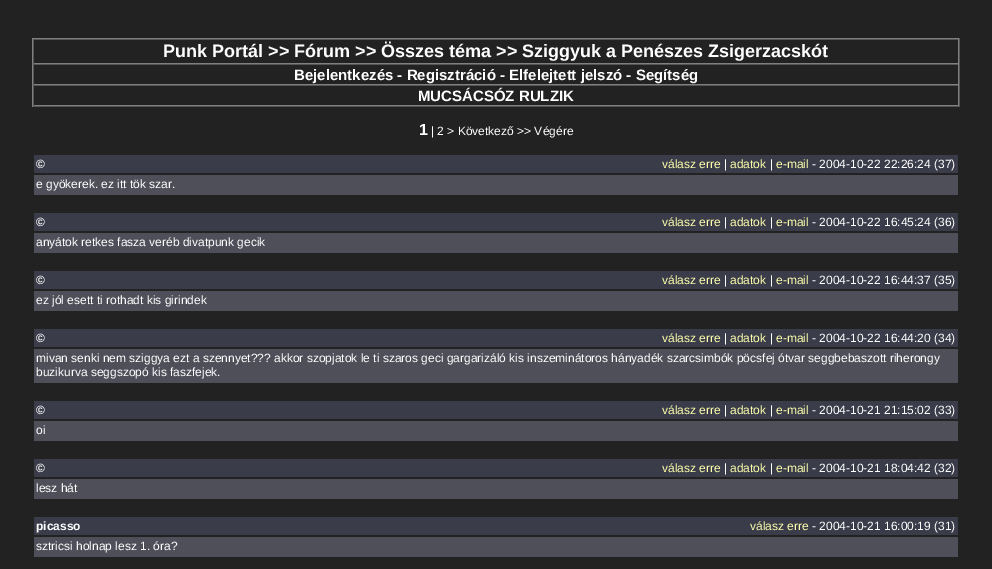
%!PS-Adobe-3.0
%%BoundingBox: 0 0 992 569
%%LanguageLevel: 3
%%Pages: 1
%%EndComments
%%BeginProlog
/fn { [ exch dup neg 0 0 3 -1 roll 0 0 ] selectfont } def
/tx { moveto show } def
/bx { rectfill } def
%%EndProlog
%%BeginSetup
<< /PageSize [992 569] >> setpagedevice
%%EndSetup
%%Page: 1 1
0 569 translate 1 -1 scale
4 setmiterlimit
0.133 setgray
0 0 992 569 bx
0.502 setgray
32 38 928 1 bx
0.333 setgray
959 38 1 69 bx
32 106 928 1 bx
0.502 setgray
32 38 1 69 bx
0.333 setgray
33 39 926 1 bx
0.502 setgray
958 39 1 25 bx
33 63 926 1 bx
0.333 setgray
33 39 1 25 bx
/LiberationSans-Bold 18 fn
1 setgray
(Punk Portál >> Fórum >> Összes téma >> Sziggyuk a Penészes Zsigerzacskót) 163 57 tx
0.333 setgray
33 64 926 1 bx
0.502 setgray
958 64 1 21 bx
33 84 926 1 bx
0.333 setgray
33 64 1 21 bx
/LiberationSans-Bold 15 fn
1 setgray
(Bejelentkezés - Regisztráció - Elfelejtett jelszó - Segítség) 294 80 tx
0.333 setgray
33 85 926 1 bx
0.502 setgray
958 85 1 21 bx
33 105 926 1 bx
0.333 setgray
33 85 1 21 bx
1 setgray
(MUCSÁCSÓZ RULZIK) 418 101 tx
/LiberationSans-Bold 16 fn
(1) 419 135 tx
/LiberationSans-Regular 12 fn
(| 2 > Következő >> Végére) 431 135 tx
0.227 0.235 0.286 setrgbcolor
34 155 924 18 bx
/LiberationSans-Bold 12 fn
1 setgray
(©) 36 168 tx
/LiberationSans-Regular 12 fn
0.996 1 0.678 setrgbcolor
(válasz erre) 662 168 tx
1 setgray
(|) 724 168 tx
0.996 1 0.678 setrgbcolor
(adatok) 730 168 tx
1 setgray
(|) 770 168 tx
0.996 1 0.678 setrgbcolor
(e-mail) 776 168 tx
1 setgray
(- 2004-10-22 22:26:24 \(37\)) 812 168 tx
0.31 0.31 0.349 setrgbcolor
34 175 924 20 bx
1 setgray
(e gyökerek. ez itt tök szar.) 36 188 tx
0.227 0.235 0.286 setrgbcolor
34 213 924 18 bx
/LiberationSans-Bold 12 fn
1 setgray
(©) 36 226 tx
/LiberationSans-Regular 12 fn
0.996 1 0.678 setrgbcolor
(válasz erre) 662 226 tx
1 setgray
(|) 724 226 tx
0.996 1 0.678 setrgbcolor
(adatok) 730 226 tx
1 setgray
(|) 770 226 tx
0.996 1 0.678 setrgbcolor
(e-mail) 776 226 tx
1 setgray
(- 2004-10-22 16:45:24 \(36\)) 812 226 tx
0.31 0.31 0.349 setrgbcolor
34 233 924 20 bx
1 setgray
(anyátok retkes fasza veréb divatpunk gecik) 36 246 tx
0.227 0.235 0.286 setrgbcolor
34 271 924 18 bx
/LiberationSans-Bold 12 fn
1 setgray
(©) 36 284 tx
/LiberationSans-Regular 12 fn
0.996 1 0.678 setrgbcolor
(válasz erre) 662 284 tx
1 setgray
(|) 724 284 tx
0.996 1 0.678 setrgbcolor
(adatok) 730 284 tx
1 setgray
(|) 770 284 tx
0.996 1 0.678 setrgbcolor
(e-mail) 776 284 tx
1 setgray
(- 2004-10-22 16:44:37 \(35\)) 812 284 tx
0.31 0.31 0.349 setrgbcolor
34 291 924 20 bx
1 setgray
(ez jól esett ti rothadt kis girindek) 36 304 tx
0.227 0.235 0.286 setrgbcolor
34 329 924 18 bx
/LiberationSans-Bold 12 fn
1 setgray
(©) 36 342 tx
/LiberationSans-Regular 12 fn
0.996 1 0.678 setrgbcolor
(válasz erre) 662 342 tx
1 setgray
(|) 724 342 tx
0.996 1 0.678 setrgbcolor
(adatok) 730 342 tx
1 setgray
(|) 770 342 tx
0.996 1 0.678 setrgbcolor
(e-mail) 776 342 tx
1 setgray
(- 2004-10-22 16:44:20 \(34\)) 812 342 tx
0.31 0.31 0.349 setrgbcolor
34 349 924 34 bx
1 setgray
(mivan senki nem sziggya ezt a szennyet??? akkor szopjatok le ti szaros geci gargarizáló kis inszeminátoros hányadék szarcsimbók pöcsfej ótvar seggbebaszott riherongy) 36 362 tx
(buzikurva seggszopó kis faszfejek.) 36 376 tx
0.227 0.235 0.286 setrgbcolor
34 401 924 18 bx
/LiberationSans-Bold 12 fn
1 setgray
(©) 36 414 tx
/LiberationSans-Regular 12 fn
0.996 1 0.678 setrgbcolor
(válasz erre) 662 414 tx
1 setgray
(|) 724 414 tx
0.996 1 0.678 setrgbcolor
(adatok) 730 414 tx
1 setgray
(|) 770 414 tx
0.996 1 0.678 setrgbcolor
(e-mail) 776 414 tx
1 setgray
(- 2004-10-21 21:15:02 \(33\)) 812 414 tx
0.31 0.31 0.349 setrgbcolor
34 421 924 20 bx
1 setgray
(oi) 36 434 tx
0.227 0.235 0.286 setrgbcolor
34 459 924 18 bx
/LiberationSans-Bold 12 fn
1 setgray
(©) 36 472 tx
/LiberationSans-Regular 12 fn
0.996 1 0.678 setrgbcolor
(válasz erre) 662 472 tx
1 setgray
(|) 724 472 tx
0.996 1 0.678 setrgbcolor
(adatok) 730 472 tx
1 setgray
(|) 770 472 tx
0.996 1 0.678 setrgbcolor
(e-mail) 776 472 tx
1 setgray
(- 2004-10-21 18:04:42 \(32\)) 812 472 tx
0.31 0.31 0.349 setrgbcolor
34 479 924 20 bx
1 setgray
(lesz hát) 36 492 tx
0.227 0.235 0.286 setrgbcolor
34 517 924 18 bx
/LiberationSans-Bold 12 fn
1 setgray
(picasso) 36 530 tx
/LiberationSans-Regular 12 fn
0.996 1 0.678 setrgbcolor
(válasz erre) 750 530 tx
1 setgray
(- 2004-10-21 16:00:19 \(31\)) 812 530 tx
0.31 0.31 0.349 setrgbcolor
34 537 924 20 bx
1 setgray
(sztricsi holnap lesz 1. óra?) 36 550 tx
showpage
%%EOF
